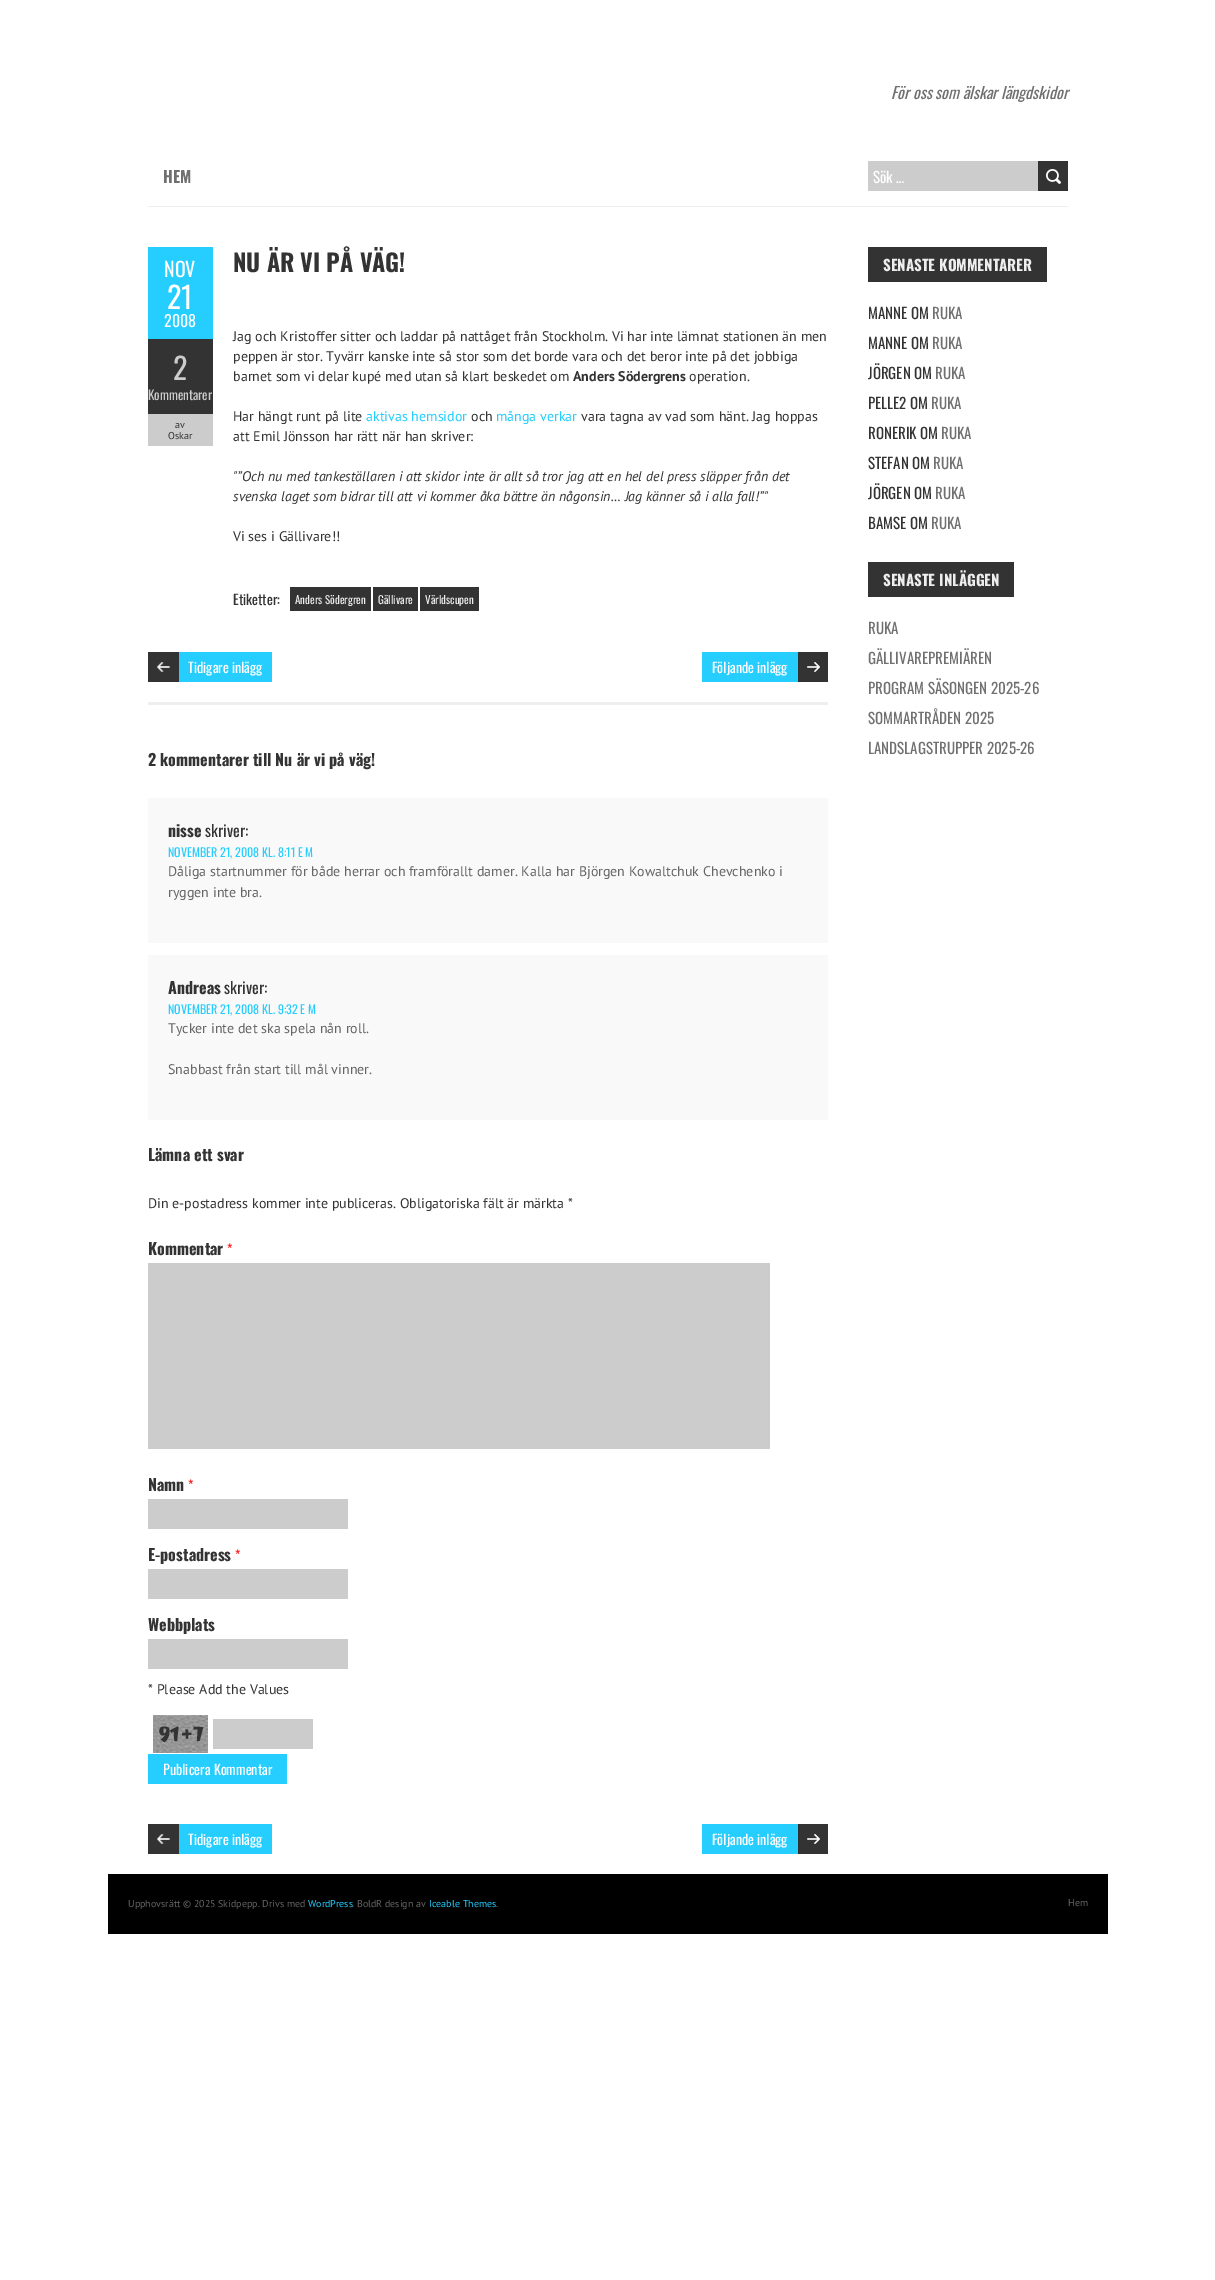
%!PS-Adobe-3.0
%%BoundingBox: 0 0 1215 2280
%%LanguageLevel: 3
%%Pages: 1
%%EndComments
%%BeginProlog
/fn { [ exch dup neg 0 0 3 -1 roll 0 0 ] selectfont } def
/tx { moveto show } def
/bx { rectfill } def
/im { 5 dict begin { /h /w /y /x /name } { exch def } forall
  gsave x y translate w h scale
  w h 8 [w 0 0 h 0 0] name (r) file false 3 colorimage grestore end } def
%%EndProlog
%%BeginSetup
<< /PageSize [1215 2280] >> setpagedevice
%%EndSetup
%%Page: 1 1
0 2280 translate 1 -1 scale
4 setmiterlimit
1 setgray
0 0 1215 2280 bx
/Oswald-Italic 16 fn
0.439 setgray
(För oss som älskar längdskidor) 891 99 tx
0.933 setgray
148 206 920 1 bx
/Oswald-Bold 16 fn
0.439 setgray
(HEM) 163 183 tx
0.8 setgray
868 161 170 30 bx
/Oswald-Regular 15 fn
1 setgray
(Sök …) 873 183 tx
0.2 setgray
1038 161 30 30 bx
(image0.raw) 1046 169 15 15 im
0.145 0.808 1 setrgbcolor
148 247 65 92 bx
/Oswald-Regular 20 fn
1 setgray
(NOV) 164 277 tx
/Oswald-Regular 30 fn
(21) 167 309 tx
/Oswald-Regular 16 fn
(2008) 164 327 tx
0.2 setgray
148 339 65 75 bx
/Oswald-Regular 30 fn
0.8 setgray
(2) 173 380 tx
/Oswald-Regular 13 fn
(Kommentarer) 148 400 tx
148 414 65 32 bx
/PTSans-Regular 10 fn
0.2 setgray
(av) 175 428 tx
(Oskar) 168 439 tx
/Oswald-Bold 24 fn
(NU ÄR VI PÅ VÄG!) 233 272 tx
/PTSans-Regular 14 fn
(Jag och Kristoffer sitter och laddar på nattåget från Stockholm. Vi har inte lämnat stationen än men) 233 341 tx
(peppen är stor. Tyvärr kanske inte så stor som det borde vara och det beror inte på det jobbiga) 233 361 tx
(barnet som vi delar kupé med utan så klart beskedet om) 233 381 tx
/PTSans-Bold 14 fn
(Anders Södergrens) 573 381 tx
/PTSans-Regular 14 fn
(operation.) 689 381 tx
(Har hängt runt på lite) 233 421 tx
0.145 0.808 1 setrgbcolor
(aktivas hemsidor) 366 421 tx
0.2 setgray
(och) 471 421 tx
0.145 0.808 1 setrgbcolor
(många verkar) 496 421 tx
0.2 setgray
(vara tagna av vad som hänt. Jag hoppas) 581 421 tx
(att Emil Jönsson har rätt när han skriver:) 233 441 tx
/PTSans-Italic 14 fn
("”Och nu med tankeställaren i att skidor inte är allt så tror jag att en hel del press släpper från det) 233 481 tx
(svenska laget som bidrar till att vi kommer åka bättre än någonsin… Jag känner så i alla fall!”") 233 501 tx
/PTSans-Regular 14 fn
(Vi ses i Gällivare!!) 233 541 tx
/Oswald-Regular 14 fn
(Etiketter:) 233 605 tx
290 587 81 24 bx
/Oswald-Regular 11 fn
0.933 setgray
(Anders Södergren) 295 604 tx
0.2 setgray
373 587 45 24 bx
0.933 setgray
(Gällivare) 378 604 tx
0.2 setgray
420 587 59 24 bx
0.933 setgray
(Världscupen) 425 604 tx
0.145 0.808 1 setrgbcolor
179 652 93 30 bx
(image1.raw) 148 652 31 30 im
/Oswald-Regular 14 fn
1 setgray
(Tidigare inlägg) 188 673 tx
0.145 0.808 1 setrgbcolor
702 652 96 30 bx
(image2.raw) 798 652 30 30 im
1 setgray
(Följande inlägg) 712 673 tx
0.933 setgray
148 702 680 3 bx
/Oswald-Bold 16 fn
0.2 setgray
(2 kommentarer till Nu är vi på väg!) 148 766 tx
0.976 setgray
148 798 680 145 bx
0.2 setgray
(nisse) 168 837 tx
/Oswald-Regular 16 fn
(skriver:) 205 837 tx
/Oswald-Regular 12 fn
0.145 0.808 1 setrgbcolor
(NOVEMBER 21, 2008 KL. 8:11 E M) 168 857 tx
/PTSans-Regular 14 fn
0.4 setgray
(Dåliga startnummer för både herrar och framförallt damer. Kalla har Björgen Kowaltchuk Chevchenko i) 168 876 tx
(ryggen inte bra.) 168 897 tx
0.976 setgray
148 955 680 165 bx
/Oswald-Bold 16 fn
0.2 setgray
(Andreas) 168 994 tx
/Oswald-Regular 16 fn
(skriver:) 224 994 tx
/Oswald-Regular 12 fn
0.145 0.808 1 setrgbcolor
(NOVEMBER 21, 2008 KL. 9:32 E M) 168 1014 tx
/PTSans-Regular 14 fn
0.4 setgray
(Tycker inte det ska spela nån roll.) 168 1033 tx
(Snabbast från start till mål vinner.) 168 1074 tx
/Oswald-Bold 16 fn
0.2 setgray
(Lämna ett svar) 148 1161 tx
/PTSans-Regular 14 fn
(Din e-postadress kommer inte publiceras. Obligatoriska fält är märkta *) 148 1208 tx
/Oswald-Bold 16 fn
(Kommentar) 148 1255 tx
/Oswald-Regular 13 fn
1 0 0 setrgbcolor
(*) 227 1254 tx
0.8 setgray
148 1263 622 186 bx
/Oswald-Bold 16 fn
0.2 setgray
(Namn) 148 1491 tx
/Oswald-Regular 13 fn
1 0 0 setrgbcolor
(*) 188 1490 tx
0.8 setgray
148 1499 200 30 bx
/Oswald-Bold 16 fn
0.2 setgray
(E-postadress) 148 1561 tx
/Oswald-Regular 13 fn
1 0 0 setrgbcolor
(*) 235 1560 tx
0.8 setgray
148 1569 200 30 bx
/Oswald-Bold 16 fn
0.2 setgray
(Webbplats) 148 1631 tx
0.8 setgray
148 1639 200 30 bx
/PTSans-Regular 14 fn
0.2 setgray
(* Please Add the Values) 148 1694 tx
(image3.raw) 153 1715 55 38 im
0.8 setgray
213 1719 100 30 bx
/JotiOne-Bold 21 fn
0.2 setgray
(91+7) 158 1741 tx
0.145 0.808 1 setrgbcolor
148 1754 139 30 bx
/Oswald-Regular 14 fn
1 setgray
(Publicera Kommentar) 163 1775 tx
0.145 0.808 1 setrgbcolor
179 1824 93 30 bx
(image1.raw) 148 1824 31 30 im
1 setgray
(Tidigare inlägg) 188 1845 tx
0.145 0.808 1 setrgbcolor
702 1824 96 30 bx
(image2.raw) 798 1824 30 30 im
1 setgray
(Följande inlägg) 712 1845 tx
0.2 setgray
868 247 179 35 bx
/Oswald-Bold 15 fn
0.933 setgray
(SENASTE KOMMENTARER) 883 271 tx
/Oswald-Regular 15 fn
0.2 setgray
(MANNE OM) 868 319 tx
0.439 setgray
(RUKA) 932 319 tx
0.2 setgray
(MANNE OM) 868 349 tx
0.439 setgray
(RUKA) 932 349 tx
0.2 setgray
(JÖRGEN OM) 868 379 tx
0.439 setgray
(RUKA) 935 379 tx
0.2 setgray
(PELLE2 OM) 868 409 tx
0.439 setgray
(RUKA) 931 409 tx
0.2 setgray
(RONERIK OM) 868 439 tx
0.439 setgray
(RUKA) 941 439 tx
0.2 setgray
(STEFAN OM) 868 469 tx
0.439 setgray
(RUKA) 933 469 tx
0.2 setgray
(JÖRGEN OM) 868 499 tx
0.439 setgray
(RUKA) 935 499 tx
0.2 setgray
(BAMSE OM) 868 529 tx
0.439 setgray
(RUKA) 931 529 tx
0.2 setgray
868 562 146 35 bx
/Oswald-Bold 15 fn
0.933 setgray
(SENASTE INLÄGGEN) 883 586 tx
/Oswald-Regular 15 fn
0.439 setgray
(RUKA) 868 634 tx
(GÄLLIVAREPREMIÄREN) 868 664 tx
(PROGRAM SÄSONGEN 2025-26) 868 694 tx
(SOMMARTRÅDEN 2025) 868 724 tx
(LANDSLAGSTRUPPER 2025-26) 868 754 tx
0 setgray
108 1874 1000 60 bx
/PTSans-Regular 10 fn
0.4 setgray
(Upphovsrätt © 2025 Skidpepp. Drivs med) 128 1907 tx
0.145 0.808 1 setrgbcolor
(WordPress) 308 1907 tx
0.4 setgray
(. BoldR design av) 352 1907 tx
0.145 0.808 1 setrgbcolor
(Iceable Themes) 429 1907 tx
0.4 setgray
(.) 496 1907 tx
(Hem) 1068 1906 tx
showpage
%%EOF
